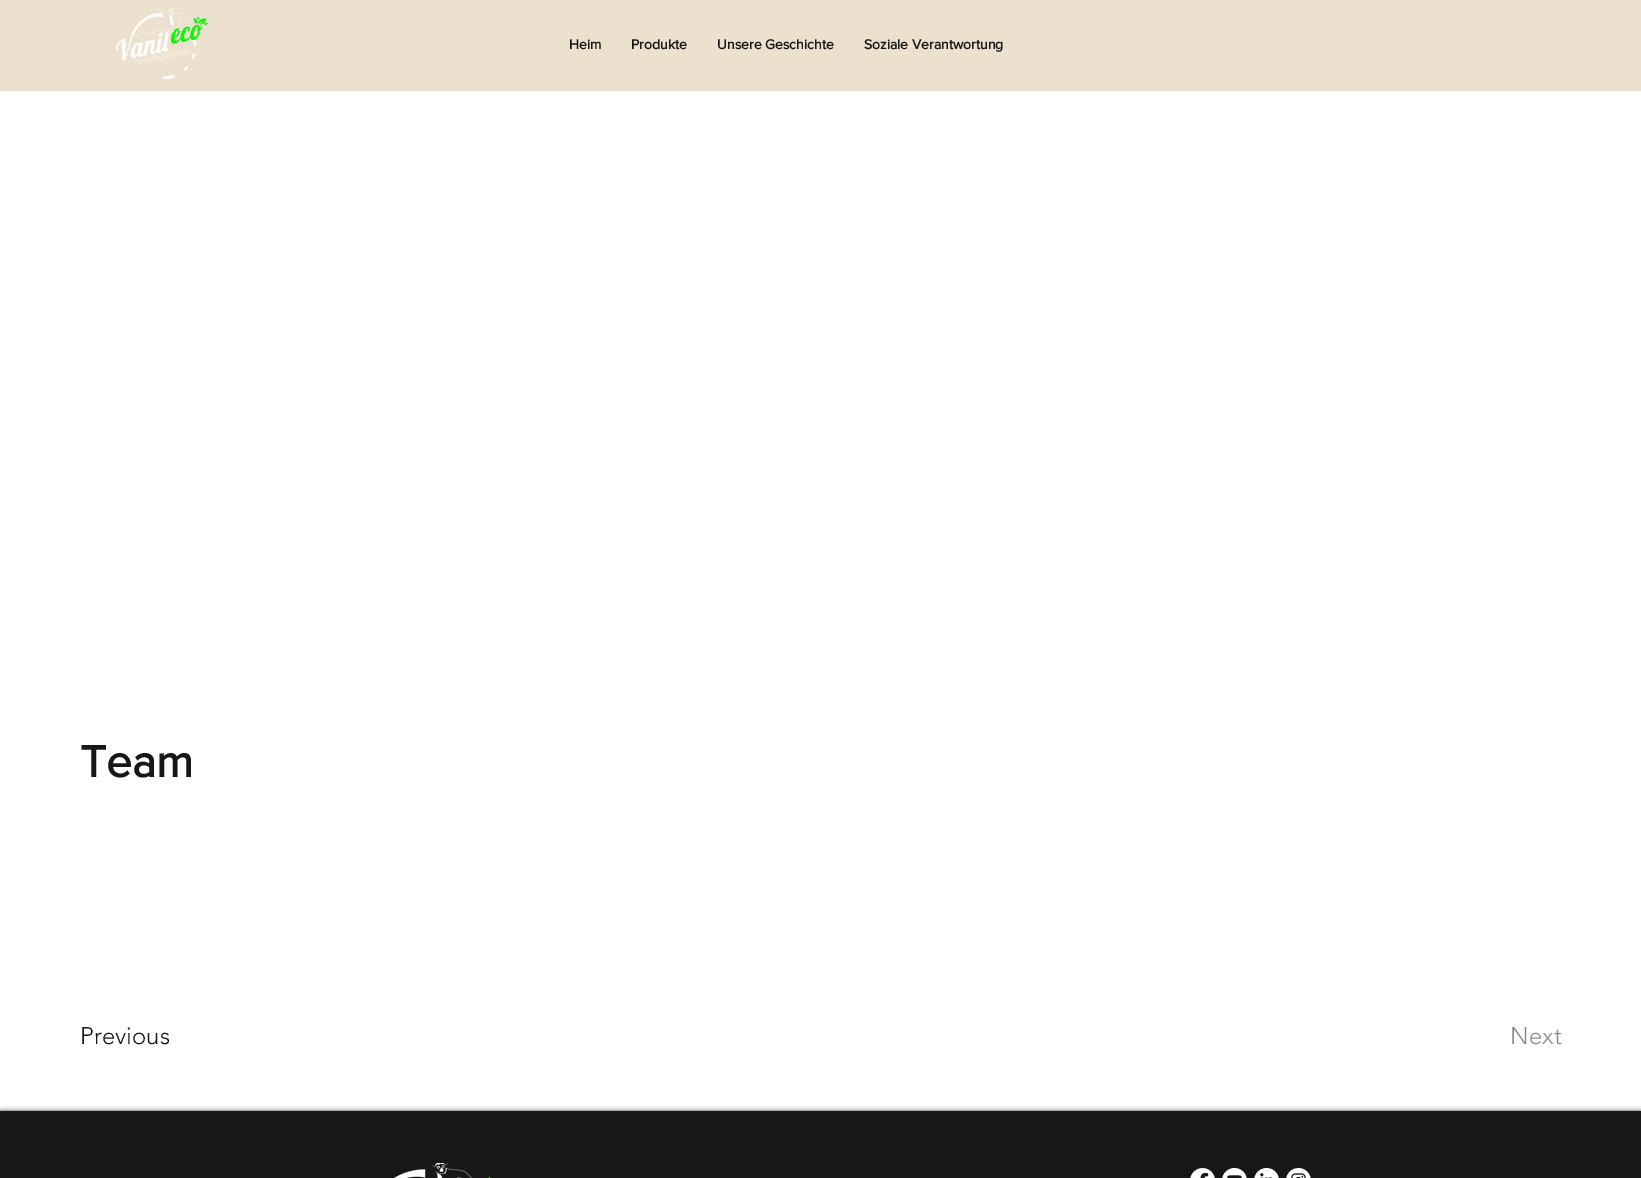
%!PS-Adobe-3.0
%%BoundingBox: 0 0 1641 1178
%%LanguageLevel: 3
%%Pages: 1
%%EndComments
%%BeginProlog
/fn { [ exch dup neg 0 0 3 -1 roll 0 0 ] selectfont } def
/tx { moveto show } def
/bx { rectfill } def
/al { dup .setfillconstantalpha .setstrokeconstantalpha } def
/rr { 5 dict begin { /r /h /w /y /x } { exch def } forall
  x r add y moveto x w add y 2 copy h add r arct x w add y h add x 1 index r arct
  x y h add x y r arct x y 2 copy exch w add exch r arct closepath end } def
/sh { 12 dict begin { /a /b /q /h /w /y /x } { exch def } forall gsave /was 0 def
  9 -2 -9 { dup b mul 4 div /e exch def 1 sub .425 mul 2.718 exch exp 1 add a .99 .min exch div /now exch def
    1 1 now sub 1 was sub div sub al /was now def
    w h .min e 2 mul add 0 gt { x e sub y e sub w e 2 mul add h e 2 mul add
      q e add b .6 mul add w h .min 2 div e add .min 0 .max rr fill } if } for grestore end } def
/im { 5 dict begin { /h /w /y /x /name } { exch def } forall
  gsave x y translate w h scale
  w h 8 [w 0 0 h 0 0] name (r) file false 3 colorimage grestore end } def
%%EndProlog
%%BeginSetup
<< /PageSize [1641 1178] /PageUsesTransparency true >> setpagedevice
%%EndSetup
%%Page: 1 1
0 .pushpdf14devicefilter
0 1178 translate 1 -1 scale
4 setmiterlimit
1 setgray
0 0 1641 1178 bx
0.925 0.882 0.808 setrgbcolor
0 0 1641 91 bx
(image0.raw) 116 9 92 70 im
/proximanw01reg-Bold 14 fn
0.098 0.09 0.086 setrgbcolor
(Heim) 569 49 tx
(Produkte) 631 49 tx
(Unsere Geschichte) 717 49 tx
(Soziale Verantwortung) 864 49 tx
/proximanw01reg-Bold 46 fn
(Team) 80 777 tx
/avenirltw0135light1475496-Light 24 fn
(Previous) 80 1044 tx
0.549 0.545 0.545 setrgbcolor
(Next) 1510 1044 tx
0 setgray
0 1111 1641 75 0 2.5 0.7 sh
0.098 0.09 0.086 setrgbcolor
0 1111 1641 67 bx
(image1.raw) 394 1163 97 15 im
(image2.raw) 1190 1168 25 10 im
(image3.raw) 1222 1168 25 10 im
(image4.raw) 1254 1168 25 10 im
(image5.raw) 1286 1168 25 10 im
.poppdf14devicefilter showpage
%%EOF
